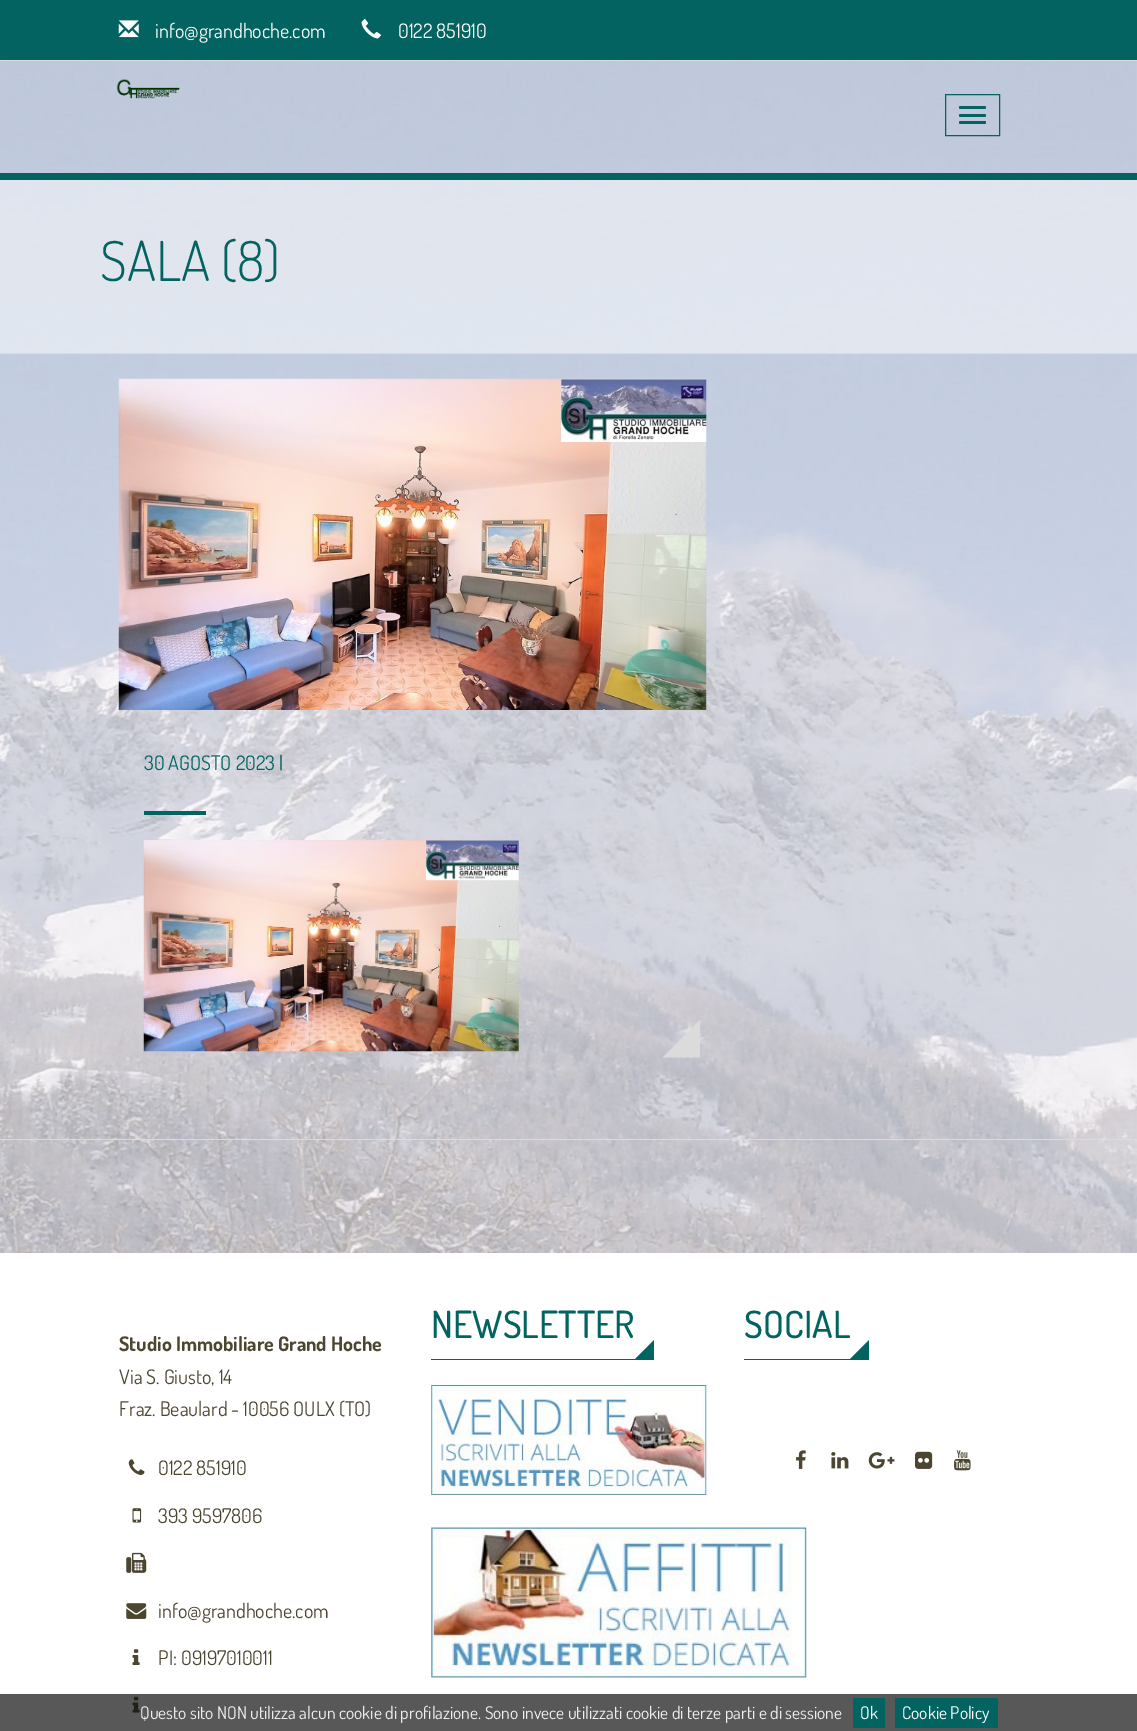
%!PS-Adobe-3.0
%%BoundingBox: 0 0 1137 1731
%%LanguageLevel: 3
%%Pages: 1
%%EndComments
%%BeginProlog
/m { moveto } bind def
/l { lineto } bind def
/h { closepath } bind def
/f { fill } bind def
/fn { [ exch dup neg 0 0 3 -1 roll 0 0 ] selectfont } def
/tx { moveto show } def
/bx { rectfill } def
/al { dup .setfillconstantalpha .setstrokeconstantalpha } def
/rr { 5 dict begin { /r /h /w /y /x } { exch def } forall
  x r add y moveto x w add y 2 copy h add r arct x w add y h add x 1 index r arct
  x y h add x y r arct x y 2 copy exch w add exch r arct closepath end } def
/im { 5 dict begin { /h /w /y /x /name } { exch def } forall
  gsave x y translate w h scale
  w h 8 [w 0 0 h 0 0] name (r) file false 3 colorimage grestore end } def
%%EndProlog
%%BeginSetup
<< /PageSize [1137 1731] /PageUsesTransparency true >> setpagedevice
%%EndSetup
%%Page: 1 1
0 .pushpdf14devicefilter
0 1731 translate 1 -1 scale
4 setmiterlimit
1 setgray
0 0 1137 1731 bx
(image0.raw) 0 61 1137 1192 im
0.008 0.388 0.38 setrgbcolor
0 0 1137 60 bx
0.859 setgray
0 60 1137 1 bx
(image1.raw) 118 20 21 18 im
/Dosis-Regular 20 fn
1 setgray
(info@grandhoche.com) 155 38 tx
(image2.raw) 361 19 20 20 im
(0122 851910) 398 38 tx
0.008 0.388 0.38 setrgbcolor
0 173 1137 7 bx
(image3.raw) 116 79 64 20 im
945.5 94.5 54 41 rectstroke
959 106 27 3 1.5 rr f
959 114 27 3 1.5 rr f
959 121 27 3 1.5 rr f
0.5 al
1 setgray
0 180 1137 173 bx
/Dosis-Light 55 fn
1 al
0.008 0.388 0.38 setrgbcolor
(SALA \(8\)) 100 281 tx
0.855 0.859 0.867 setrgbcolor
0 353 1137 1 bx
0 1139 1137 1 bx
(image4.raw) 118 378 589 332 im
/Dosis-Regular 20 fn
0.008 0.388 0.38 setrgbcolor
(30 AGOSTO 2023 |) 144 770 tx
144 811 62 4 bx
(image5.raw) 143 840 376 212 im
0.859 setgray
700 1057.5 m 662.5 1057.5 l 700 1020 l h f
0.008 0.388 0.38 setrgbcolor
431 1359 223 1 bx
/Dosis-Medium 37.5 fn
(NEWSLETTER) 431 1338 tx
654 1359 m 635 1359 l 654 1340 l h f
(image6.raw) 431 1385 276 110 im
(image7.raw) 431 1527 376 151 im
744 1359 125 1 bx
(SOCIAL) 744 1338 tx
869 1359 m 850 1359 l 869 1340 l h f
(image8.raw) 796 1450 10 19 im
(image9.raw) 831 1452 18 17 im
(image10.raw) 868 1452 27 17 im
(image11.raw) 915 1451 18 18 im
(image12.raw) 954 1450 17 21 im
/Dosis-Bold 20 fn
0.298 0.271 0.188 setrgbcolor
(Studio Immobiliare Grand Hoche) 119 1351 tx
/Dosis-Regular 20 fn
(Via S. Giusto, 14) 119 1384 tx
(Fraz. Beaulard - 10056 OULX \(TO\)) 119 1416 tx
(image13.raw) 128 1459 17 16 im
(0122 851910) 158 1475 tx
(image14.raw) 132 1508 10 15 im
(393 9597806) 158 1523 tx
(image15.raw) 126 1552 21 21 im
(image16.raw) 126 1603 21 16 im
(info@grandhoche.com) 158 1618 tx
(image17.raw) 132 1649 8 16 im
(PI: 09197010011) 158 1665 tx
(image18.raw) 132 1696 8 17 im
0.7 al
0.067 setgray
0 1694 1137 37 bx
/Dosis-Regular 17.5 fn
1 al
0.933 setgray
(Questo sito NON utilizza alcun cookie di profilazione. Sono invece utilizzati cookie di terze parti e di sessione) 140 1719 tx
0.008 0.388 0.38 setrgbcolor
853 1698 32 30 bx
1 setgray
(Ok) 860 1719 tx
0.008 0.388 0.38 setrgbcolor
895 1698 103 30 bx
1 setgray
(Cookie Policy) 902 1719 tx
.poppdf14devicefilter showpage
%%EOF
